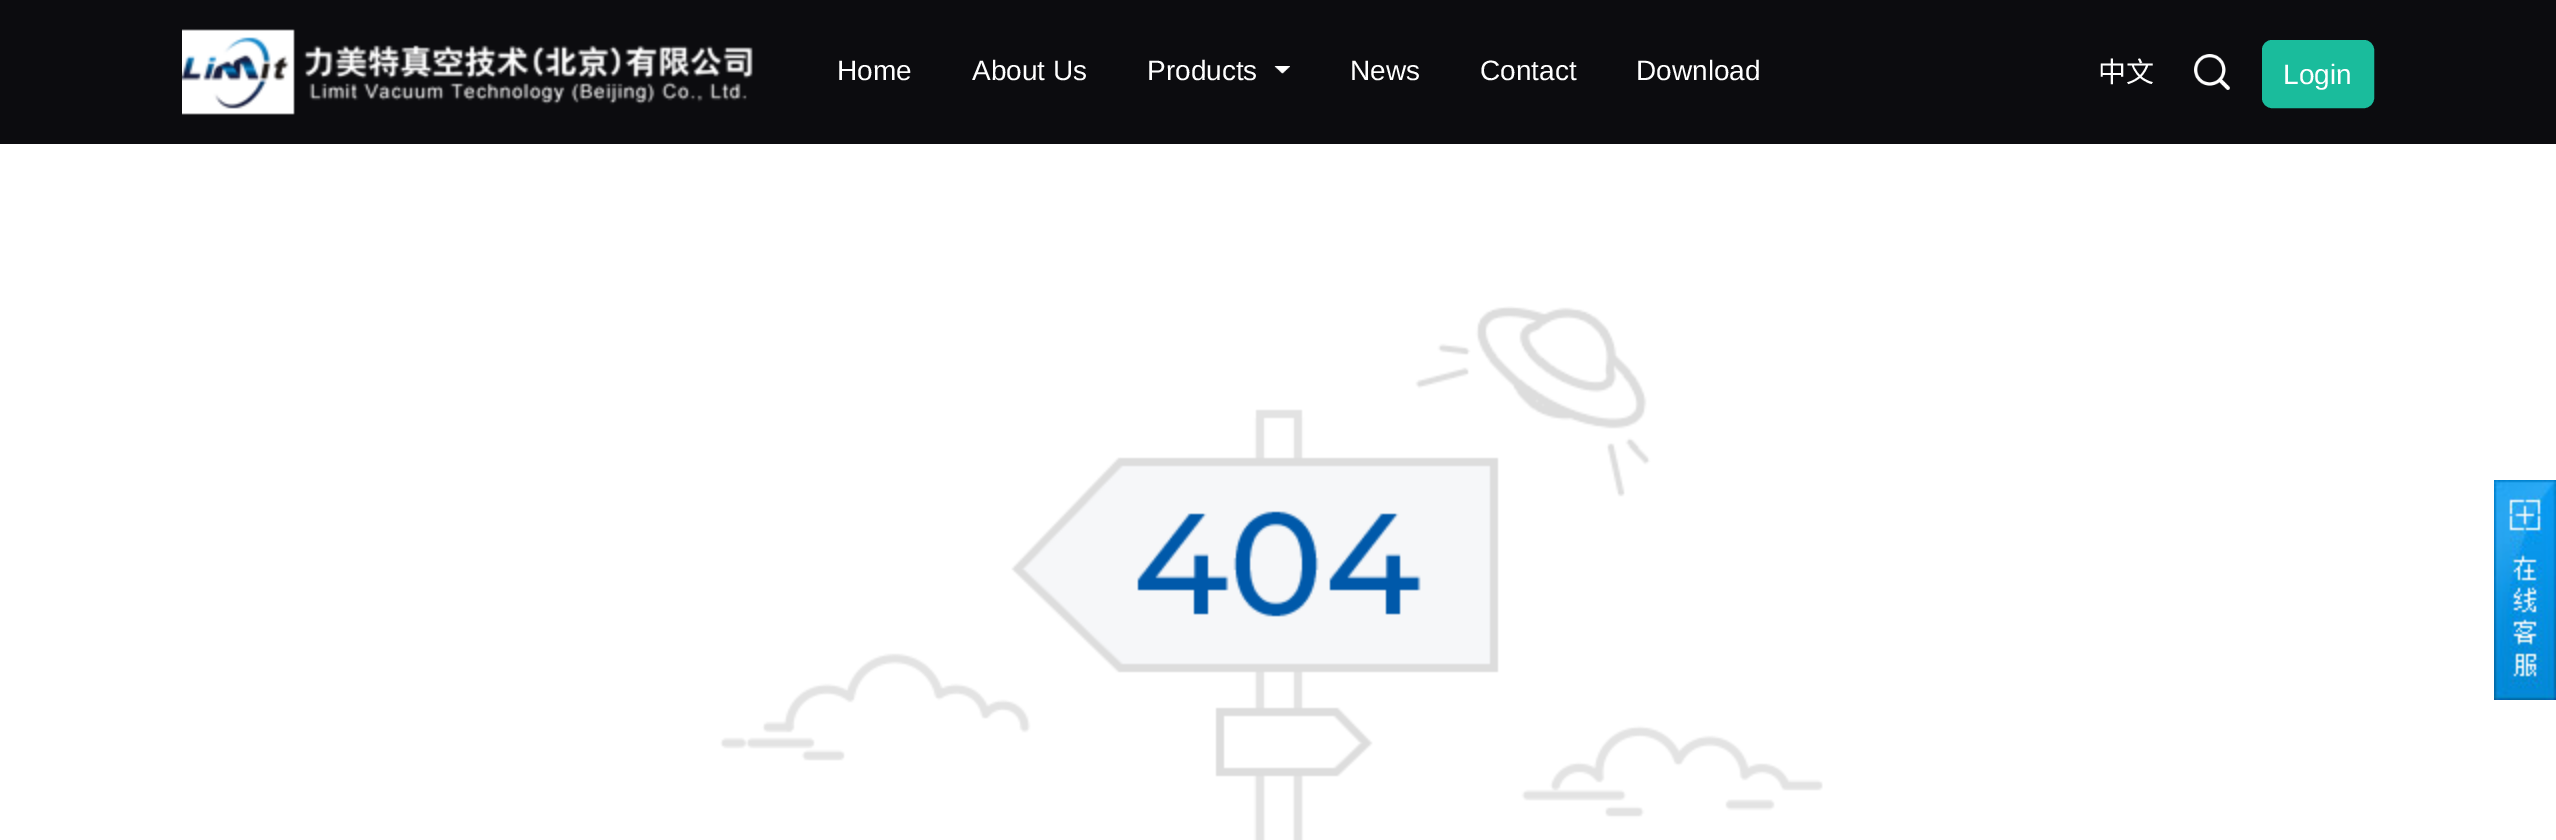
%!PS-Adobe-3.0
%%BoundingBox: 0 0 2556 840
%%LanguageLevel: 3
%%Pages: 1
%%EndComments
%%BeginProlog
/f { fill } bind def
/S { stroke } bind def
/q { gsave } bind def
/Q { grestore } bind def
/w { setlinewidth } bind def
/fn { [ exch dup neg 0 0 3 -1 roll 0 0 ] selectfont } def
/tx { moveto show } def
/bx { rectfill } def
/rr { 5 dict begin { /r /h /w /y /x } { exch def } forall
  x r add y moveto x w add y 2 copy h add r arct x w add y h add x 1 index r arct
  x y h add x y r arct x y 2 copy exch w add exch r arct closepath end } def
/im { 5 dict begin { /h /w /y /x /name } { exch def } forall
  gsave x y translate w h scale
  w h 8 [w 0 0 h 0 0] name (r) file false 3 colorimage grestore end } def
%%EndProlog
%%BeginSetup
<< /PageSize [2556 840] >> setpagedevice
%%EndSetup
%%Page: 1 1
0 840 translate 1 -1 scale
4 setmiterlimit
1 setgray
0 0 2556 840 bx
0.047 0.047 0.059 setrgbcolor
0 0 2556 144 bx
(image0.raw) 182 29 571 86 im
/LiberationSans-Regular 28 fn
1 setgray
(Home) 837 80 tx
(About Us) 972 80 tx
(Products) 1147 80 tx
(image1.raw) 1274 66 16 8 im
(News) 1350 80 tx
(Contact) 1480 80 tx
(Download) 1636 80 tx
/NotoSansCJKSC-Regular 28 fn
(中文) 2098 82 tx
(image2.raw) 2194 54 36 36 im
0.102 0.737 0.612 setrgbcolor
2263 41 110 66 9 rr q f Q
2 w
S
/LiberationSans-Regular 28 fn
1 setgray
(Login) 2283 84 tx
(image3.raw) 720 306 1103 534 im
(image4.raw) 2494 480 62 220 im
showpage
%%EOF
